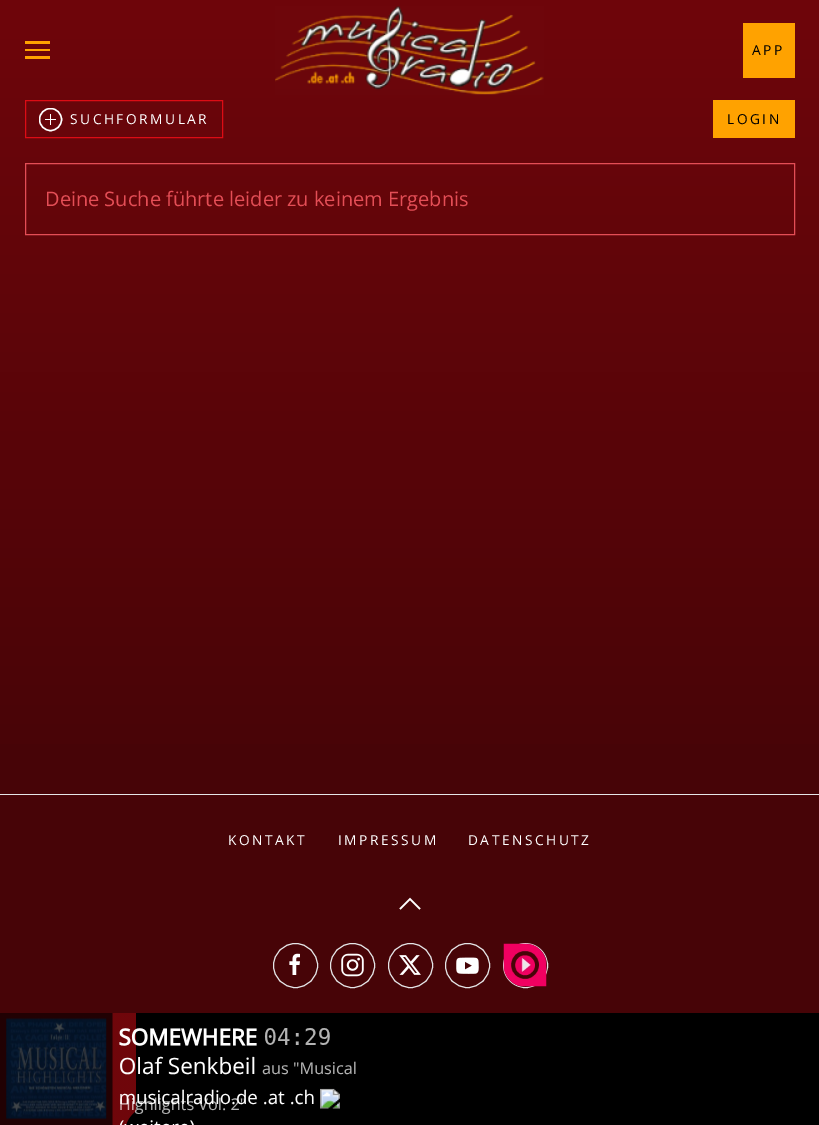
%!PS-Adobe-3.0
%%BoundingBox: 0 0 819 1125
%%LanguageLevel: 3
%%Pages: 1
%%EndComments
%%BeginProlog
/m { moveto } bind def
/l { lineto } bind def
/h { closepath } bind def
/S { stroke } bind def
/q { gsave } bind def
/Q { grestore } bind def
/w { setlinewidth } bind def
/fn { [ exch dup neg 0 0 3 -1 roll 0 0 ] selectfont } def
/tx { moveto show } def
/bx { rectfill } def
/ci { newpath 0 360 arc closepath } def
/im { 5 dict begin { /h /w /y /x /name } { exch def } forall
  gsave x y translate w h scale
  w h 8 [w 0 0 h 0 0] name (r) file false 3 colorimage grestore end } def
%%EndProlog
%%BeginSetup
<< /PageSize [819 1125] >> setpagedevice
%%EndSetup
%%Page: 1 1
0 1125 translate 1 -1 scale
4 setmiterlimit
0.278 0.016 0.027 setrgbcolor
0 0 819 1125 bx
q 0 0 m 819 0 l 819 744 l 0 744 l h clip newpath
<< /ShadingType 2 /ColorSpace /DeviceRGB /Coords [410 0 410 794] /Extend [true true] /Function << /FunctionType 2 /Domain [0 1] /C0 [0.435 0.024 0.043] /C1 [0.278 0.016 0.027] /N 1 >> >> shfill Q
1 0.635 0 setrgbcolor
25 41 25 3 bx
25 49 25 2 bx
25 56 25 3 bx
(image0.raw) 275 6 269 89 im
743 23 52 55 bx
/OpenSans-Regular 13.75 fn
0 setgray
752 55 m 2.5 0 (APP) ashow
0.867 0.047 0.082 setrgbcolor
25.5 100.5 197 37 rectstroke
q
39 108 25 25 rectclip
1 setgray
1.4 w
50.5 119.5 11 ci S
Q
1 setgray
50 114 1 11 bx
45 119 11 1 bx
70 124 m 2.5 0 (SUCHFORMULAR) ashow
1 0.635 0 setrgbcolor
713 100 82 38 bx
0 setgray
727 124 m 2.5 0 (LOGIN) ashow
0.894 0.306 0.337 setrgbcolor
25.5 163.5 769 71 rectstroke
/OpenSans-Regular 20 fn
(Deine Suche führte leider zu keinem Ergebnis) 45 206 tx
0.898 0.898 0.906 setrgbcolor
0 794 819 1 bx
/OpenSans-Regular 13.75 fn
1 setgray
228 845 m 2.5 0 (KONTAKT) ashow
338 845 m 2.5 0 (IMPRESSUM) ashow
468 845 m 2.5 0 (DATENSCHUTZ) ashow
1.5 w
400 909 m 410 899 l 420 909 l S
0.898 0.898 0.906 setrgbcolor
1 w
295.5 965.5 22 ci S
(image1.raw) 289 953 11 22 im
352.5 965.5 22 ci S
(image2.raw) 341 953 23 24 im
410.5 965.5 22 ci S
(image3.raw) 399 955 22 20 im
467.5 965.5 22 ci S
(image4.raw) 456 957 23 17 im
525.5 965.5 22 ci S
(image5.raw) 503 943 44 44 im
(image6.raw) 0 1013 819 112 im
showpage
%%EOF
